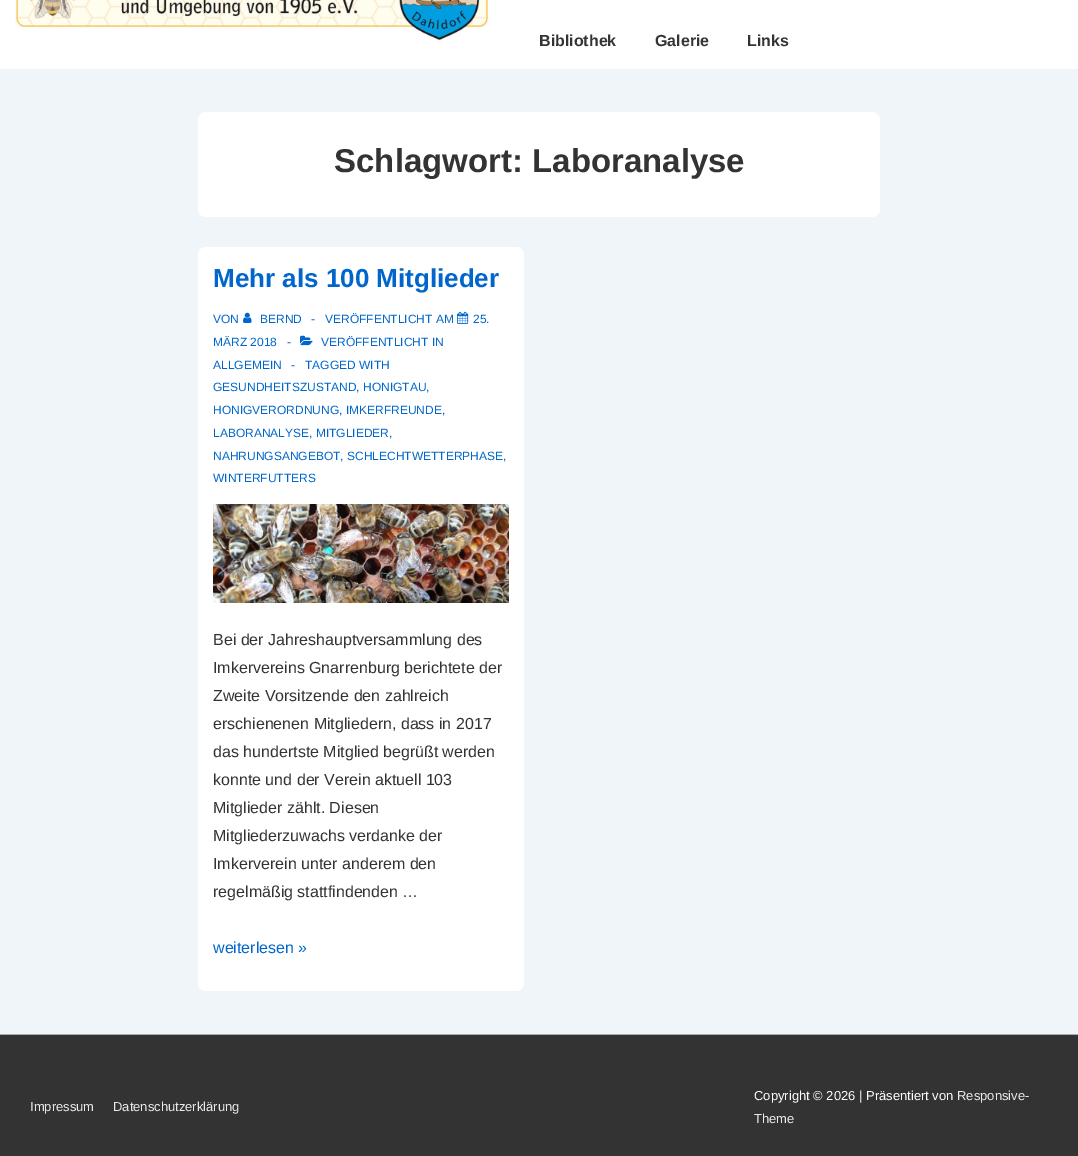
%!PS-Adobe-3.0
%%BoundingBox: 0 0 1078 1156
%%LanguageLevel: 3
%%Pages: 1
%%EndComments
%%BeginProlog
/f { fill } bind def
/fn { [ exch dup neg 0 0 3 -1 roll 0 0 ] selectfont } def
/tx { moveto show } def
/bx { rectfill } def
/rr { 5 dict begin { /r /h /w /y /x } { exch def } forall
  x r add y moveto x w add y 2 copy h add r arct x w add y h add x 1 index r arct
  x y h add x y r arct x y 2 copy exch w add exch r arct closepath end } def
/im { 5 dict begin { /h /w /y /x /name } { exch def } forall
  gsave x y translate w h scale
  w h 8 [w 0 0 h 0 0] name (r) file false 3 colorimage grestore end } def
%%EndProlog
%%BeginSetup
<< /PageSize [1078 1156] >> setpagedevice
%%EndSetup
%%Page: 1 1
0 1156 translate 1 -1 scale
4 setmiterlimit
0.941 0.961 0.98 setrgbcolor
0 0 1078 1156 bx
1 setgray
0 0 1078 69 bx
(image0.raw) 15 0 474 41 im
/LiberationSans-Bold 16 fn
0.2 setgray
(Bibliothek) 539 46 tx
(Galerie) 655 46 tx
(Links) 747 46 tx
1 setgray
198 112 682 105 8 rr f
/LiberationSans-Bold 33 fn
0.2 setgray
(Schlagwort: Laboranalyse) 334 172 tx
1 setgray
198 247 326 744 8 rr f
/LiberationSans-Bold 26 fn
0 0.4 0.8 setrgbcolor
(Mehr als 100 Mitglieder) 213 287 tx
/LiberationSans-Regular 12 fn
(VON) 213 323 tx
(image1.raw) 243 312 9 11 im
(BERND) 260 323 tx
(-) 311 323 tx
(VERÖFFENTLICHT AM) 325 323 tx
(image2.raw) 457 311 12 13 im
(25.) 473 323 tx
(MÄRZ 2018) 213 346 tx
(-) 287 346 tx
(image3.raw) 300 335 13 11 im
(VERÖFFENTLICHT IN) 321 346 tx
(ALLGEMEIN) 213 369 tx
(-) 291 369 tx
(TAGGED WITH) 305 369 tx
(GESUNDHEITSZUSTAND, HONIGTAU,) 213 391 tx
(HONIGVERORDNUNG, IMKERFREUNDE,) 213 414 tx
(LABORANALYSE, MITGLIEDER,) 213 437 tx
(NAHRUNGSANGEBOT, SCHLECHTWETTERPHASE,) 213 460 tx
(WINTERFUTTERS) 213 482 tx
(image4.raw) 213 504 296 99 im
/LiberationSans-Regular 16 fn
0.2 setgray
(Bei der Jahreshauptversammlung des) 213 645 tx
(Imkervereins Gnarrenburg berichtete der) 213 673 tx
(Zweite Vorsitzende den zahlreich) 213 701 tx
(erschienenen Mitgliedern, dass in 2017) 213 729 tx
(das hundertste Mitglied begrüßt werden) 213 757 tx
(konnte und der Verein aktuell 103) 213 785 tx
(Mitglieder zählt. Diesen) 213 813 tx
(Mitgliederzuwachs verdanke der) 213 841 tx
(Imkerverein unter anderem den) 213 869 tx
(regelmäßig stattfindenden …) 213 897 tx
0 0.4 0.8 setrgbcolor
(weiterlesen ») 213 953 tx
0.2 setgray
0 1035 1078 121 bx
0.667 setgray
0 1034 1078 1 bx
/LiberationSans-Regular 13 fn
0.918 setgray
(Impressum) 30 1111 tx
(Datenschutzerklärung) 113 1111 tx
1 setgray
(Copyright © 2026 | Präsentiert von) 754 1100 tx
0.918 setgray
(Responsive-) 957 1100 tx
(Theme) 754 1123 tx
showpage
%%EOF
